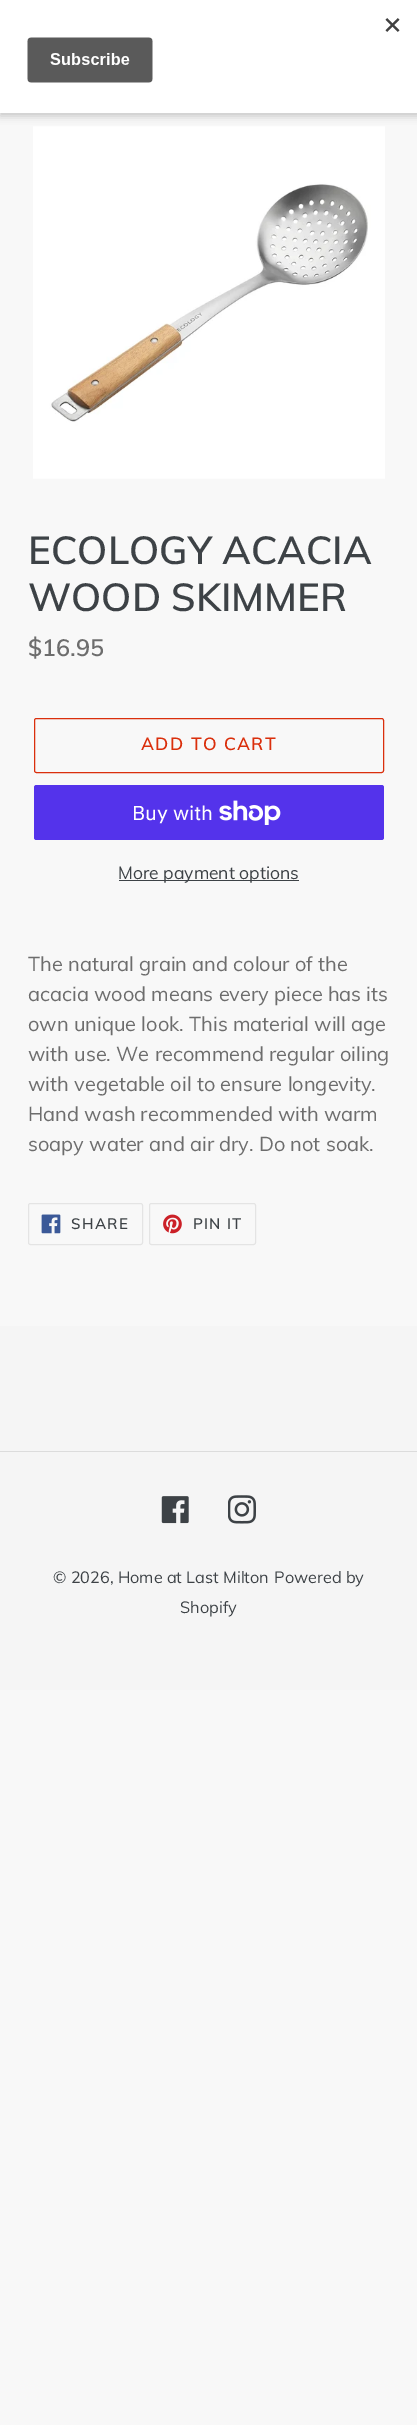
%!PS-Adobe-3.0
%%BoundingBox: 0 0 417 2425
%%LanguageLevel: 3
%%Pages: 1
%%EndComments
%%BeginProlog
/m { moveto } bind def
/f { fill } bind def
/S { stroke } bind def
/fn { [ exch dup neg 0 0 3 -1 roll 0 0 ] selectfont } def
/tx { moveto show } def
/bx { rectfill } def
/al { dup .setfillconstantalpha .setstrokeconstantalpha } def
/rr { 5 dict begin { /r /h /w /y /x } { exch def } forall
  x r add y moveto x w add y 2 copy h add r arct x w add y h add x 1 index r arct
  x y h add x y r arct x y 2 copy exch w add exch r arct closepath end } def
/sh { 12 dict begin { /a /b /q /h /w /y /x } { exch def } forall gsave /was 0 def
  9 -2 -9 { dup b mul 4 div /e exch def 1 sub .425 mul 2.718 exch exp 1 add a .99 .min exch div /now exch def
    1 1 now sub 1 was sub div sub al /was now def
    w h .min e 2 mul add 0 gt { x e sub y e sub w e 2 mul add h e 2 mul add
      q e add b .6 mul add w h .min 2 div e add .min 0 .max rr fill } if } for grestore end } def
/im { 5 dict begin { /h /w /y /x /name } { exch def } forall
  gsave x y translate w h scale
  w h 8 [w 0 0 h 0 0] name (r) file false 3 colorimage grestore end } def
%%EndProlog
%%BeginSetup
<< /PageSize [417 2425] /PageUsesTransparency true >> setpagedevice
%%EndSetup
%%Page: 1 1
0 .pushpdf14devicefilter
0 2425 translate 1 -1 scale
4 setmiterlimit
0.973 setgray
0 0 417 2425 bx
(image1.raw) 33 126 352 353 im
0 setgray
0 4 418 112 0 4 0.2 sh
1 setgray
0 0 417 113 bx
(image0.raw) 27 18 373 65 im
/Muli-SemiBold 38.75 fn
0.239 0.259 0.275 setrgbcolor
(ECOLOGY ACACIA) 28 564 tx
(WOOD SKIMMER) 28 611 tx
/Muli-SemiBold 23.5 fn
0.427 setgray
($16.95) 28 656 tx
0.855 0.184 0.047 setrgbcolor
34.5 718.5 349 54 2 rr S
/Muli-SemiBold 17.5 fn
141 750 m 1.4 0 (ADD TO CART) ashow
0.329 0.2 0.922 setrgbcolor
34 785 350 55 2.5 rr f
/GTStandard-Regular 20 fn
1 setgray
(Buy with) 132 820 tx
(image2.raw) 219 800 62 25 im
0.239 0.259 0.275 setrgbcolor
119 880 180 1 bx
/Muli-Regular 17.5 fn
(More payment options) 118 879 tx
/Muli-Regular 20 fn
0.427 setgray
(The natural grain and colour of the) 28 971 tx
(acacia wood means every piece has its) 28 1001 tx
(own unique look. This material will age) 28 1031 tx
(with use. We recommend regular oiling) 28 1061 tx
(with vegetable oil to ensure longevity.) 28 1091 tx
(Hand wash recommended with warm) 28 1121 tx
(soapy water and air dry. Do not soak.) 28 1151 tx
0.894 setgray
28.5 1203.5 114 41 2 rr S
(image3.raw) 41 1214 20 20 im
/Muli-SemiBold 15 fn
0.239 0.259 0.275 setrgbcolor
71 1229 m 1.25 0 (SHARE) ashow
0.894 setgray
149.5 1203.5 106 41 2 rr S
(image4.raw) 163 1214 19 20 im
0.239 0.259 0.275 setrgbcolor
193 1229 m 1.25 0 (PIN IT) ashow
0.961 setgray
0 1326 417 364 bx
0.863 setgray
0 1451 417 1 bx
(image5.raw) 161 1496 28 28 im
(image6.raw) 228 1495 28 29 im
/Muli-Regular 16.25 fn
0.239 0.259 0.275 setrgbcolor
(© 2026, Home at Last Milton) 53 1583 tx
(Powered by) 274 1583 tx
(Shopify) 180 1613 tx
.poppdf14devicefilter showpage
%%EOF
